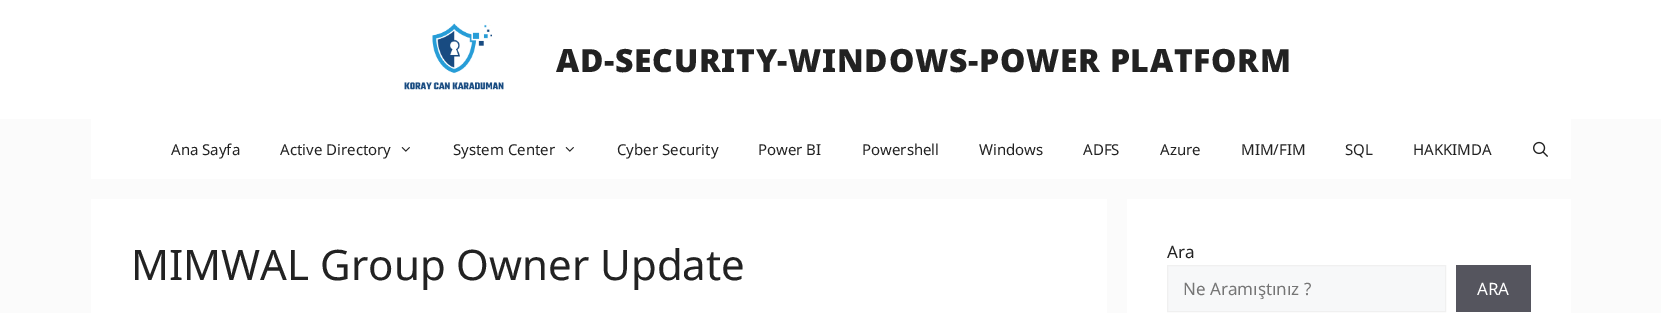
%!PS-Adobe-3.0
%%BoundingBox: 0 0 1661 313
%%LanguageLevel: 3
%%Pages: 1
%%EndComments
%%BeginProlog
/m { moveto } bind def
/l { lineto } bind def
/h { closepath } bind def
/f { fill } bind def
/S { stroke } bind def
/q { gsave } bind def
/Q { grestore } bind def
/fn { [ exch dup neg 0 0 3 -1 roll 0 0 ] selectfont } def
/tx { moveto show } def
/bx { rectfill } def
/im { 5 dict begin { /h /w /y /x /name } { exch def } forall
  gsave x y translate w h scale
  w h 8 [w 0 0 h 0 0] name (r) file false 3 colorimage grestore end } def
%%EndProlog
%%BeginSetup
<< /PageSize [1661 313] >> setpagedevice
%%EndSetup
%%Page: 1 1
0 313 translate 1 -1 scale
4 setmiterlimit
0.984 setgray
0 0 1661 313 bx
1 setgray
0 0 1661 119 bx
(image0.raw) 404 23 100 67 im
/NotoSans-Black 32 fn
0.133 setgray
556 72 m 0.7 0 (AD-SECURITY-WINDOWS-POWER PLATFORM) ashow
1 setgray
91 119 1480 60 bx
/NotoSans-Regular 15 fn
0.133 setgray
(Ana Sayfa) 171 155 tx
(Active Directory) 280 155 tx
(image1.raw) 401 147 9 5 im
(System Center) 453 155 tx
(image1.raw) 565 147 9 5 im
(Cyber Security) 617 155 tx
(Power BI) 758 155 tx
(Powershell) 862 155 tx
(Windows) 979 155 tx
(ADFS) 1083 155 tx
(Azure) 1160 155 tx
(MIM/FIM) 1241 155 tx
(SQL) 1345 155 tx
(HAKKIMDA) 1413 155 tx
(image2.raw) 1533 141 15 16 im
1 setgray
91 199 1016 114 bx
/NotoSans-Regular 42 fn
0.133 setgray
(MIMWAL Group Owner Update) 131 280 tx
1 setgray
1127 199 444 114 bx
/NotoSans-Regular 17 fn
0.133 setgray
(Ara) 1167 258 tx
0.969 0.973 0.976 setrgbcolor
1167.5 265.5 m 1445.5 265.5 l 1445.5 311.5 l 1167.5 311.5 l h q f Q
0.941 setgray
S
0.459 setgray
(Ne Aramıştınız ?) 1183 295 tx
0.333 0.333 0.369 setrgbcolor
1456 265 75 47 bx
1 setgray
(ARA) 1477 295 tx
showpage
%%EOF
